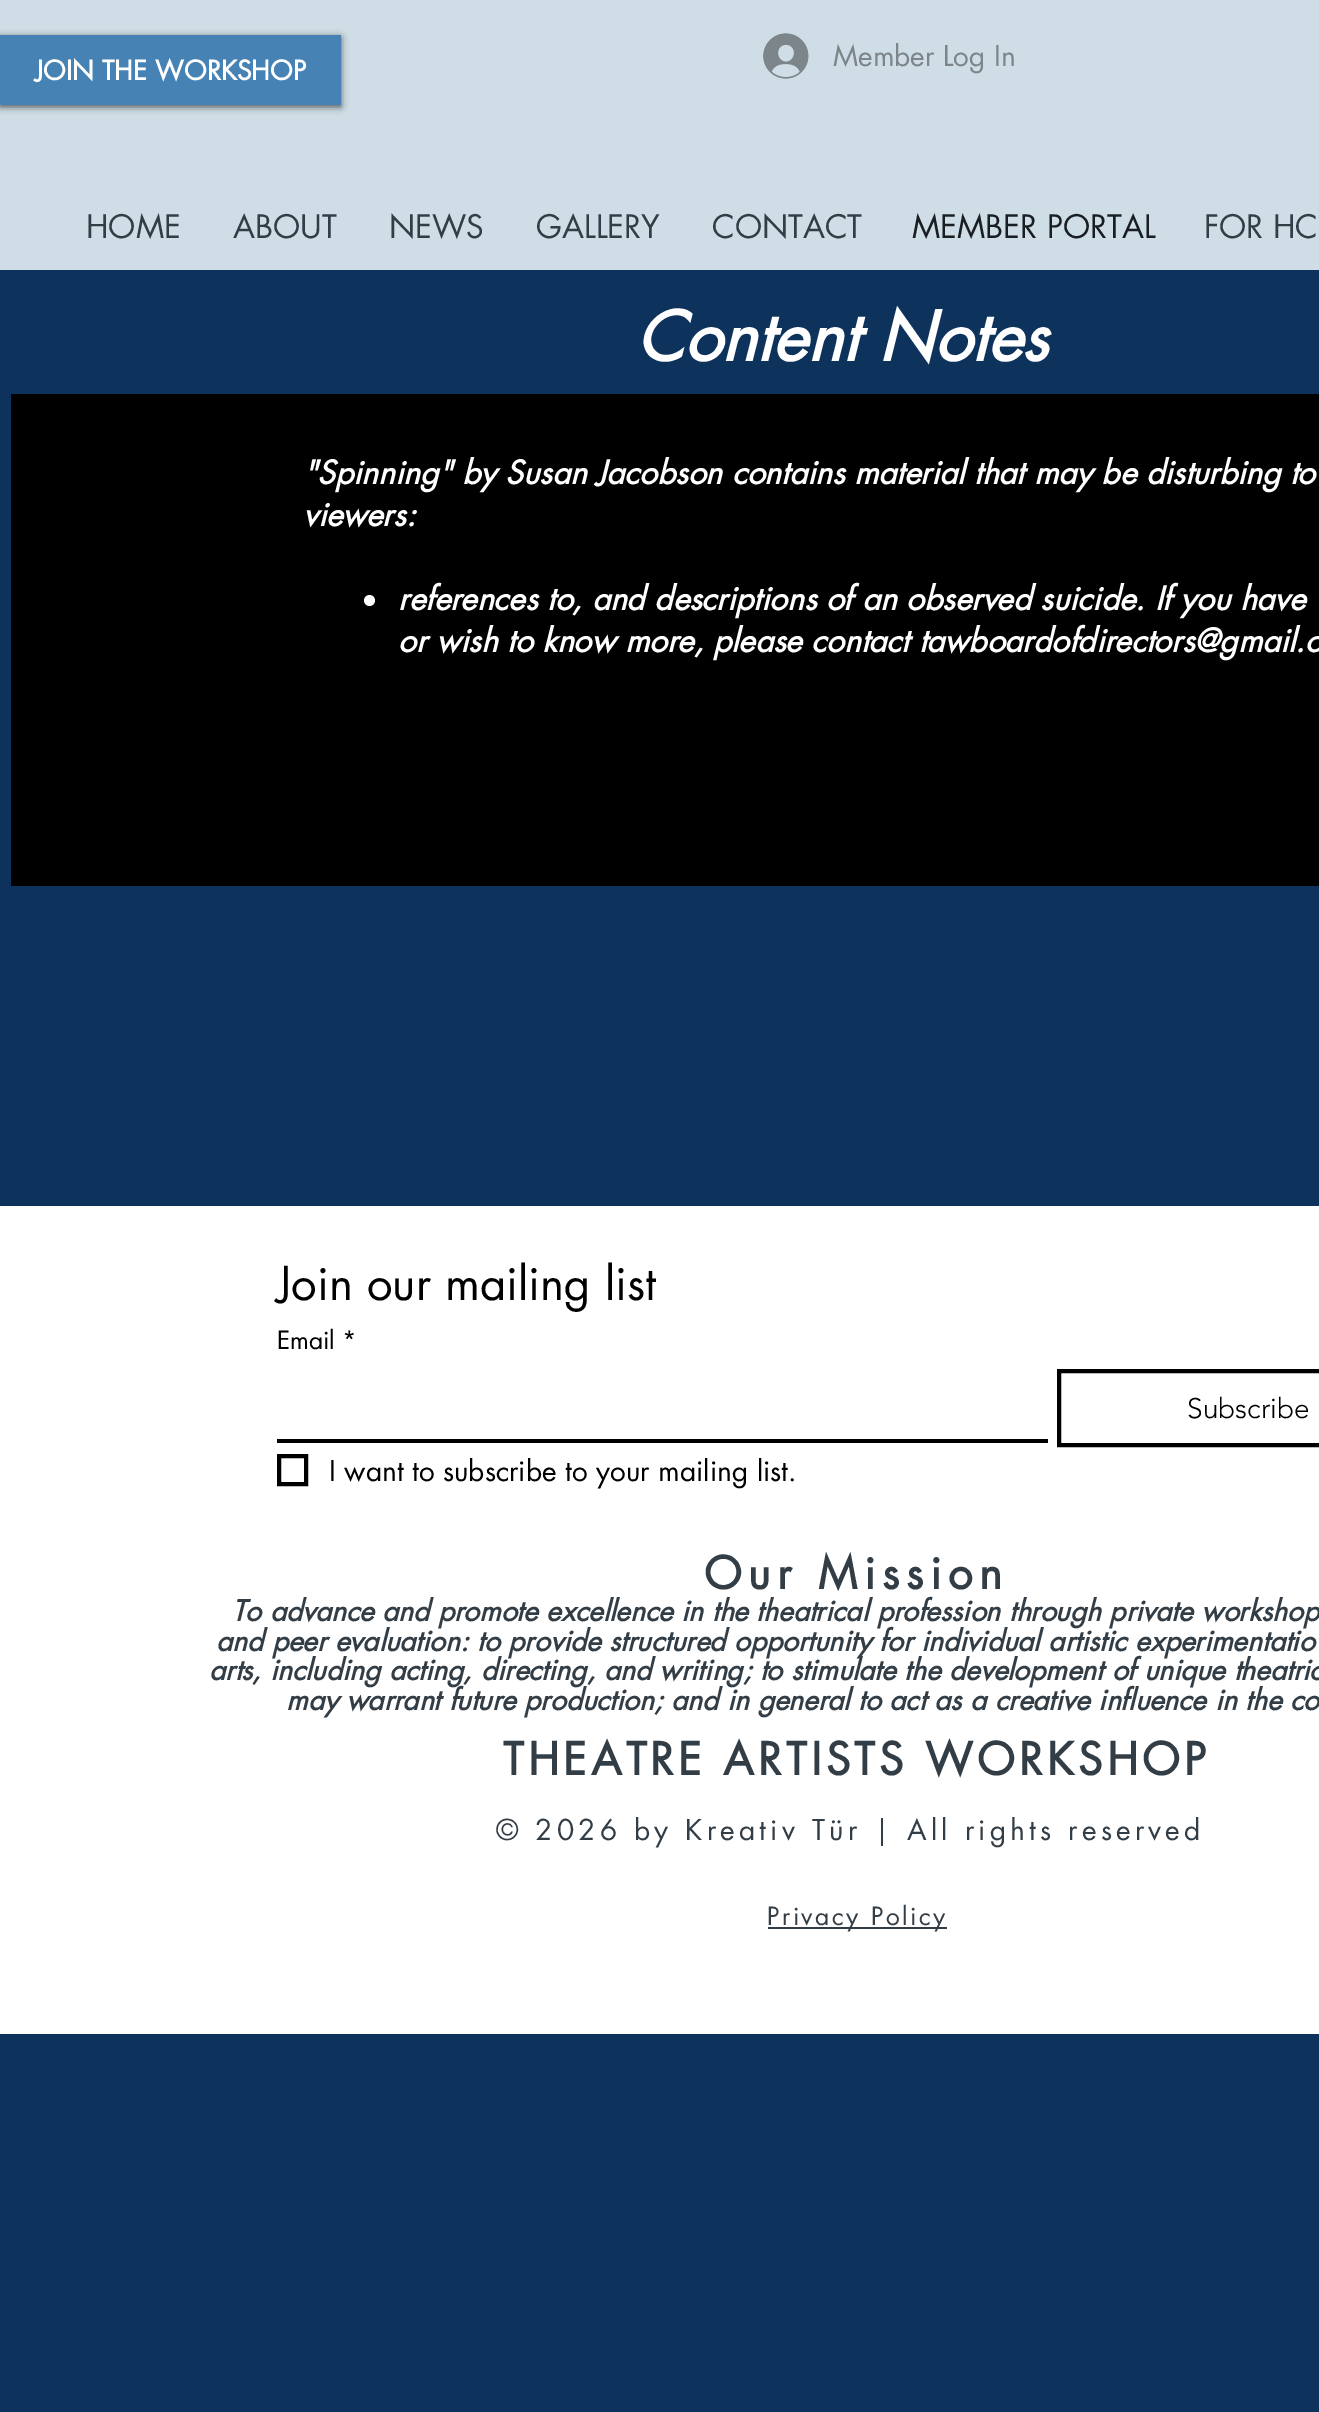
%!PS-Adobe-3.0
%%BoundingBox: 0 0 1319 2412
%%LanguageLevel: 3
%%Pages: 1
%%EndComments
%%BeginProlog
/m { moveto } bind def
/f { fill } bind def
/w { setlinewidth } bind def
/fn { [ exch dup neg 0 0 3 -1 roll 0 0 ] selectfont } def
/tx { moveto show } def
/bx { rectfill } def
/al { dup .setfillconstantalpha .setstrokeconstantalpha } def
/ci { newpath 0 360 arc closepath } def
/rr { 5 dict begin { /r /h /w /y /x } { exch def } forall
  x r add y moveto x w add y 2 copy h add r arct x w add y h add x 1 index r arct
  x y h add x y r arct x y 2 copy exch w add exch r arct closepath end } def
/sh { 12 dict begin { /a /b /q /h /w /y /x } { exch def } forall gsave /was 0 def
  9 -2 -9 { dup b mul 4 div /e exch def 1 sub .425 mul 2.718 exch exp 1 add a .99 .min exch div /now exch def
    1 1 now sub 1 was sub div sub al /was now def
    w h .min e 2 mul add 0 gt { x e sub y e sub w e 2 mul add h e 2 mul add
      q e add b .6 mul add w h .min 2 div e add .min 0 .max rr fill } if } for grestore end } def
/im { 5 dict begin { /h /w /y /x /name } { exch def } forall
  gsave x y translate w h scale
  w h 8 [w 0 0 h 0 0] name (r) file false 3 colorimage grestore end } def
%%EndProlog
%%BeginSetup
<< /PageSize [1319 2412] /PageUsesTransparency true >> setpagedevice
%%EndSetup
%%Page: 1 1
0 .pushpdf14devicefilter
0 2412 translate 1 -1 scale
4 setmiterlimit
0.051 0.196 0.361 setrgbcolor
0 0 1319 2412 bx
0.812 0.871 0.902 setrgbcolor
0 0 1319 270 bx
0 setgray
0 37 341 70 0 3.5 0.6 sh
0.275 0.51 0.706 setrgbcolor
0 35 341 70 bx
/futura-Bold 26.25 fn
1 setgray
(JOIN THE WORKSHOP) 35 80 tx
(image0.raw) 763 33 46 46 im
/futura-Regular 28 fn
0.486 0.522 0.541 setrgbcolor
(Member Log In) 833 66 tx
/futura-Regular 31.5 fn
0.196 0.239 0.275 setrgbcolor
(HOME) 86 238 tx
(ABOUT) 233 238 tx
(NEWS) 389 238 tx
(GALLERY) 536 238 tx
(CONTACT) 712 238 tx
0.098 0.118 0.137 setrgbcolor
(MEMBER PORTAL) 912 238 tx
0.196 0.239 0.275 setrgbcolor
(FOR HC) 1204 238 tx
/futura-BoldItalic 66.5 fn
1 setgray
(Content Notes) 636 361 tx
0 setgray
11 394 1308 492 bx
/futura-BoldItalic 31.5 fn
1 setgray
("Spinning" by Susan Jacobson contains material that may be disturbing to) 303 484 tx
(viewers:) 303 526 tx
369.5 600.5 5.5 ci f
(references to, and descriptions of an observed suicide. If you have) 398 610 tx
(or wish to know more, please contact tawboardofdirectors@gmail.c) 398 652 tx
0 1206 1319 828 bx
/futura-Regular 45.5 fn
0 setgray
(Join our mailing list) 277 1300 tx
/futura-Regular 24.5 fn
(Email) 277 1349 tx
(*) 342 1349 tx
4 w
1059 1371 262 74 rectstroke
/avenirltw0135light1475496-Light 28 fn
(Subscribe) 1187 1418 tx
277 1439 771 4 bx
279 1456 27 28 rectstroke
/futura-Regular 28 fn
(I want to subscribe to your mailing list.) 329 1481 tx
/futura-Bold 43.75 fn
0.196 0.239 0.275 setrgbcolor
704 1589 m 6.5 0 (Our Mission) ashow
/futura-BoldItalic 28 fn
(To advance and promote excellence in the theatrical profession through private workshop) 232 1621 tx
(and peer evaluation: to provide structured opportunity for individual artistic experimentatio) 216 1651 tx
(arts, including acting, directing, and writing; to stimulate the development of unique theatric) 209 1680 tx
(may warrant future production; and in general to act as a creative influence in the co) 286 1710 tx
/futura-Bold 43.75 fn
503 1775 m 4.2 0 (THEATRE ARTISTS WORKSHOP) ashow
/futura-Regular 28 fn
496 1840 m 4.2 0 (© 2026 by Kreativ Tür | All rights reserved) ashow
768 1927 179 2 bx
/futura-Regular 24.5 fn
767 1925 m 2.5 0 (Privacy Policy) ashow
.poppdf14devicefilter showpage
%%EOF
